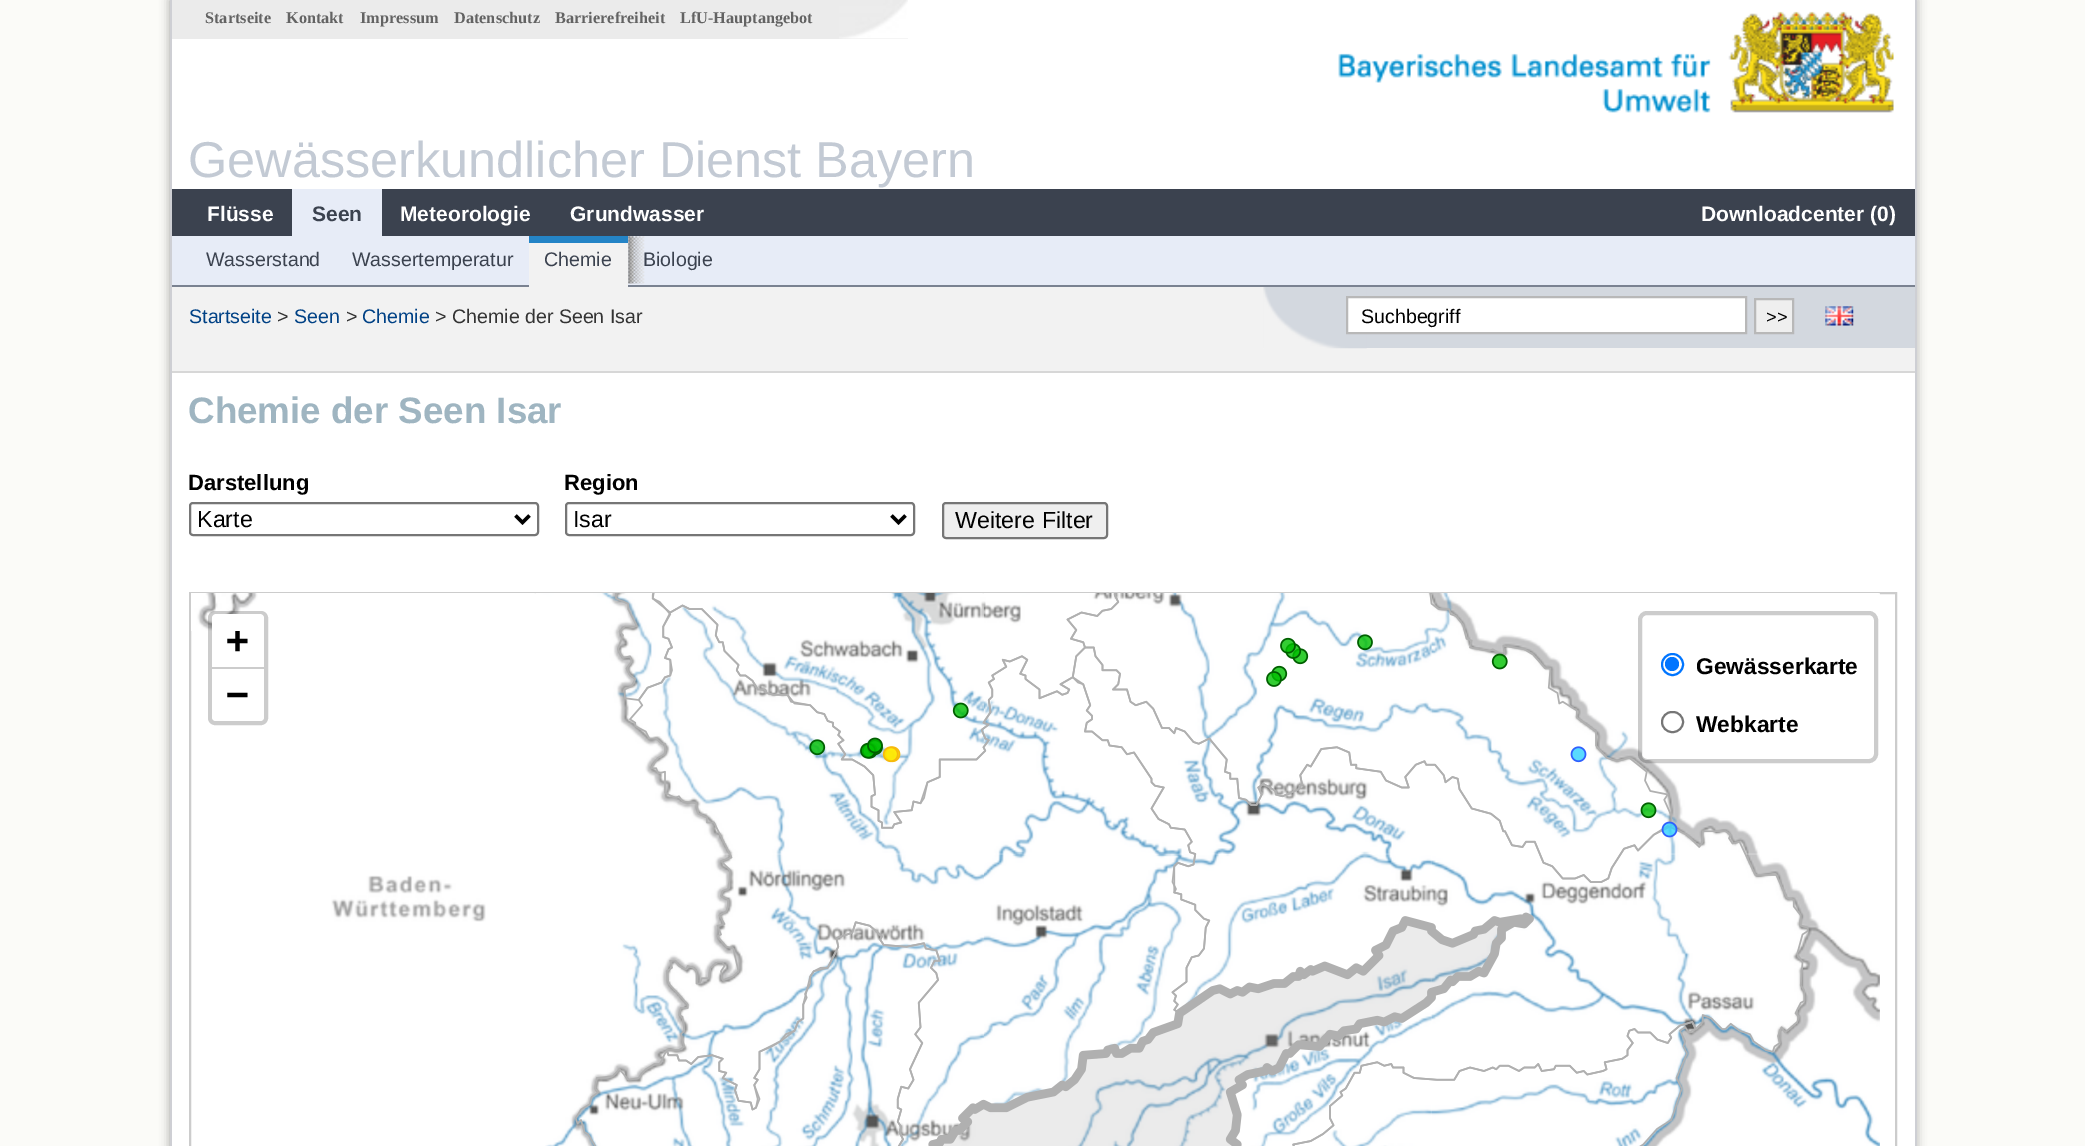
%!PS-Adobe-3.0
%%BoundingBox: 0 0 2085 1146
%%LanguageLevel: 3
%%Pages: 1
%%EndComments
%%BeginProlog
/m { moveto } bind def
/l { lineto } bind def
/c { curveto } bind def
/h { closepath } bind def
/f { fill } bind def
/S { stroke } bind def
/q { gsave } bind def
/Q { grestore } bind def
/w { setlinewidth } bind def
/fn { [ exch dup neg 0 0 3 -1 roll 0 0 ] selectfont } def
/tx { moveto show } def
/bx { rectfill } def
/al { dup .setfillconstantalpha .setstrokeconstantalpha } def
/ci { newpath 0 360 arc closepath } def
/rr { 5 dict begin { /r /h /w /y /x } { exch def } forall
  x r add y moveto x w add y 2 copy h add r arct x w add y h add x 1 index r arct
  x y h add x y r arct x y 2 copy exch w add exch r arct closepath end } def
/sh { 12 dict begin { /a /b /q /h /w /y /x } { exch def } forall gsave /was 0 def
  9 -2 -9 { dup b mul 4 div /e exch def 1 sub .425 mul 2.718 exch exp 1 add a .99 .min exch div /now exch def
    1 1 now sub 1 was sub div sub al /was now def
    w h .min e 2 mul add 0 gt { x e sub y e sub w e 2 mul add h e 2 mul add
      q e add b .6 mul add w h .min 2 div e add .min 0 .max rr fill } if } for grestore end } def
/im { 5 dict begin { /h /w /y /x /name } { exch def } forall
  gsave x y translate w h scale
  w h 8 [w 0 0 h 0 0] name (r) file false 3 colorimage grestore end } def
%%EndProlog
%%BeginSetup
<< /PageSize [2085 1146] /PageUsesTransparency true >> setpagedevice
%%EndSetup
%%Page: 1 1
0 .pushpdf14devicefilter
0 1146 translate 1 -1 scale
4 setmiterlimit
0.984 0.984 0.973 setrgbcolor
0 0 2085 1146 bx
0 setgray
170 0 1746 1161 0 5 0.35 sh
1 setgray
172 0 1743 189 bx
0.808 0.812 0.831 setrgbcolor
1915 0 2 1146 bx
170 0 2 1146 bx
0.922 setgray
172 0 736 39 bx
(image0.raw) 839 0 69 39 im
/LiberationSerif-Bold 16.25 fn
0.388 setgray
(Startseite) 205 23 tx
(Kontakt) 286 23 tx
(Impressum) 360 23 tx
(Datenschutz) 454 23 tx
(Barrierefreiheit) 555 23 tx
(LfU-Hauptangebot) 680 23 tx
(image1.raw) 1338 11 556 102 im
/LiberationSans-Regular 50.4 fn
0.765 0.792 0.831 setrgbcolor
(Gewässerkundlicher Dienst Bayern) 188 177 tx
0.231 0.259 0.31 setrgbcolor
172 189 1743 47 bx
/LiberationSans-Bold 21 fn
1 setgray
(Flüsse) 207 221 tx
0.906 0.925 0.969 setrgbcolor
292 189 90 47 bx
0.231 0.259 0.31 setrgbcolor
(Seen) 312 221 tx
1 setgray
(Meteorologie) 400 221 tx
(Grundwasser) 570 221 tx
(Downloadcenter \(0\)) 1701 221 tx
0.906 0.925 0.969 setrgbcolor
172 236 1743 49 bx
0.478 0.51 0.569 setrgbcolor
172 285 1743 2 bx
/LiberationSans-Regular 19.6 fn
0.231 0.259 0.31 setrgbcolor
(Wasserstand) 206 266 tx
(Wassertemperatur) 352 266 tx
0.949 setgray
529 243 99 44 bx
0.141 0.518 0.776 setrgbcolor
529 236 99 7 bx
0.231 0.259 0.31 setrgbcolor
(Chemie) 544 266 tx
(image2.raw) 628 236 17 48 im
(Biologie) 643 266 tx
0.949 setgray
172 287 1743 84 bx
0 0.255 0.522 setrgbcolor
(Startseite) 189 323 tx
0.2 setgray
(>) 277 323 tx
0 0.255 0.522 setrgbcolor
(Seen) 294 323 tx
0.2 setgray
(>) 346 323 tx
0 0.255 0.522 setrgbcolor
(Chemie) 362 323 tx
0.2 setgray
(> Chemie der Seen Isar) 435 323 tx
0.827 0.847 0.875 setrgbcolor
1366 287 549 61 bx
(image3.raw) 1263 287 104 62 im
1 setgray
1347 297 m 1746 297 l 1746 333 l 1347 333 l h q f Q
0.722 setgray
2 w
S
0 setgray
(Suchbegriff) 1361 323 tx
0.937 setgray
1755 299 m 1793 299 l 1793 333 l 1755 333 l h q f Q
0.722 setgray
S
/LiberationSans-Regular 18 fn
0 setgray
(>>) 1766 323 tx
(image4.raw) 1825 306 29 20 im
1 setgray
172 373 1743 773 bx
0.843 setgray
172 371 1743 2 bx
/LiberationSans-Bold 36.75 fn
0.624 0.71 0.757 setrgbcolor
(Chemie der Seen Isar) 188 423 tx
/LiberationSans-Bold 22 fn
0 setgray
(Darstellung) 188 490 tx
0.463 setgray
190 503 348 32 3 rr S
0 setgray
3.5 w
515.5 515.5 m 522.5 522.5 l 529.5 515.5 l S
/LiberationSans-Regular 23.25 fn
(Karte) 197 527 tx
/LiberationSans-Bold 22 fn
(Region) 564 490 tx
0.463 setgray
2 w
566 503 348 32 3 rr S
0 setgray
3.5 w
891.5 515.5 m 898.5 522.5 l 905.5 515.5 l S
/LiberationSans-Regular 23.25 fn
(Isar) 573 527 tx
0.937 setgray
943 503 164 35 3 rr q f Q
0.463 setgray
2 w
S
0 setgray
(Weitere Filter) 955 528 tx
0.8 setgray
190 593 1706 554 rectstroke
(image11.raw) 982 853 450 293 im
(image7.raw) 982 593 450 261 im
(image10.raw) 545 853 439 293 im
(image6.raw) 535 593 449 261 im
(image5.raw) 191 593 345 38 im
(image12.raw) 1430 853 450 293 im
(image8.raw) 1430 593 450 261 im
(image9.raw) 331 875 155 47 im
(image13.raw) 575 593 1234 553 im
(image14.raw) 809 634 869 204 im
(image15.raw) 882 746 19 17 im
0.2 al
0 setgray
4 w
210 613 56 110 5 rr S
1 al
1 setgray
216 614 m 260 614 l 262 614 264 616 264 618 c 264 669 l 212 669 l 212 618 l 212 616 214 614 216 614 c h f
0.8 setgray
212 667 52 2 bx
/DejaVuSansMono-Bold 38 fn
0 setgray
(+) 226 653 tx
1 setgray
212 669 m 264 669 l 264 717 l 264 719 262 721 260 721 c 216 721 l 214 721 212 719 212 717 c h f
0 setgray
(−) 226 707 tx
1 setgray
1642 614 232 146 5 rr f
0.2 al
0 setgray
1640 613 236 148 7 rr S
1 al
0 0.459 1 setrgbcolor
2 w
1672.5 664.5 10.5 ci S
1672 664 7 ci f
/LiberationSans-Bold 22.75 fn
0 setgray
(Gewässerkarte) 1696 674 tx
0.463 setgray
1662 712 21 20 10 rr S
0 setgray
(Webkarte) 1696 732 tx
.poppdf14devicefilter showpage
%%EOF
